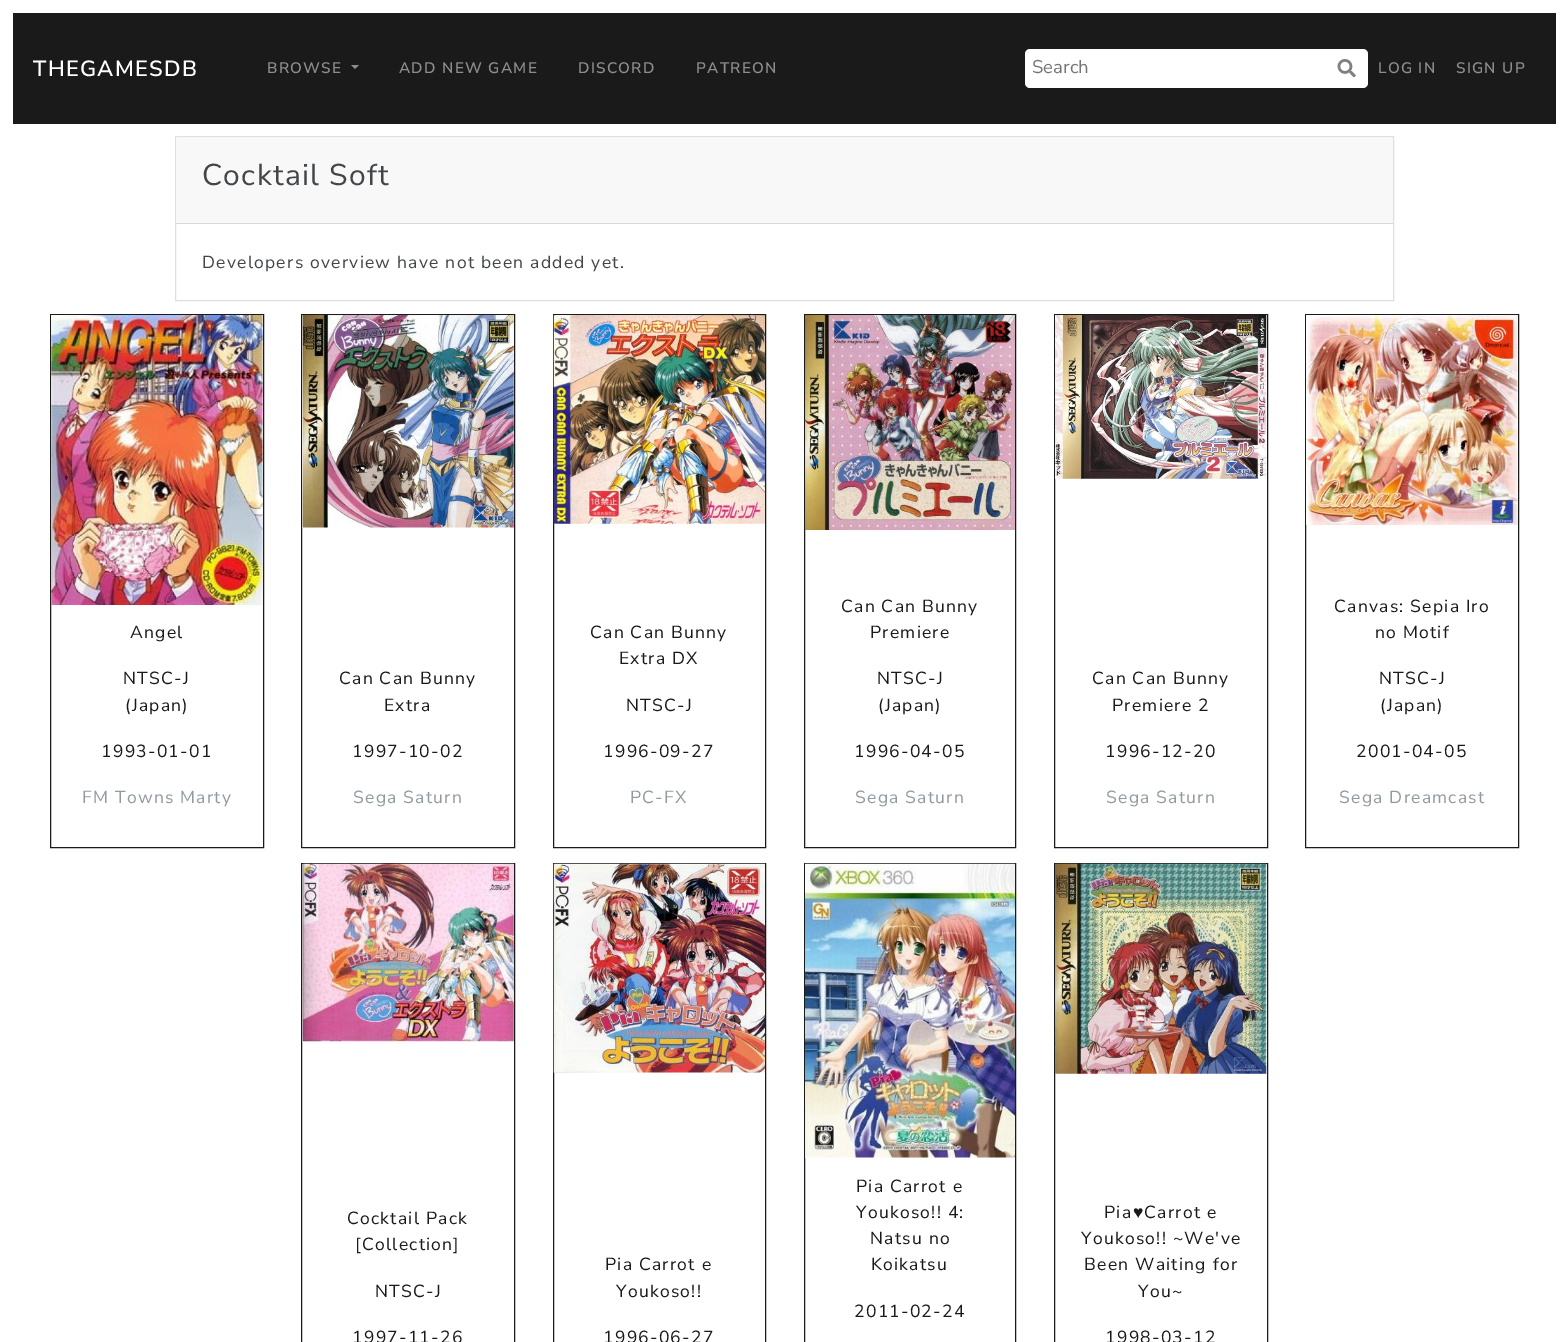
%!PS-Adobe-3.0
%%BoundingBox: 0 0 1568 1342
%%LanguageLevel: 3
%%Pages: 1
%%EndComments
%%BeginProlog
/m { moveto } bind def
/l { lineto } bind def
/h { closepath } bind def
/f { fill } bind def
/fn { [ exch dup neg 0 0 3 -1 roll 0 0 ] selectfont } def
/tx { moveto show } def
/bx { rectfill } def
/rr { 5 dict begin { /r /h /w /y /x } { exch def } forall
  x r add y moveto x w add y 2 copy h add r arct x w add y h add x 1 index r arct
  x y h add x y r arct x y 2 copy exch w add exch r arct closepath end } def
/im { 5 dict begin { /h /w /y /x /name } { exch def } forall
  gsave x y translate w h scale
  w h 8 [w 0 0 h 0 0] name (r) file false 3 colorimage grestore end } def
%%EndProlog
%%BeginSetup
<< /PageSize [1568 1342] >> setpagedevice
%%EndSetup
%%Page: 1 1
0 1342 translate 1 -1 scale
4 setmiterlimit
1 setgray
0 0 1568 1342 bx
0.102 setgray
13 13 1543 111 bx
/NunitoSans-SemiBold 22 fn
1 setgray
33 76 m 1.25 0 (THEGAMESDB) ashow
/NunitoSans-SemiBold 15.25 fn
0.553 setgray
267 73 m 1.25 0 (BROWSE) ashow
351 65 m 359 65 l 355 69 l h f
399 73 m 1.25 0 (ADD NEW GAME) ashow
578 73 m 1.25 0 (DISCORD) ashow
696 73 m 1.25 0 (PATREON) ashow
1 setgray
1025 49 343 39 5 rr f
/NunitoSans-Regular 18.5 fn
0.459 setgray
(Search) 1032 73 tx
(image0.raw) 1337 59 19 19 im
/NunitoSans-SemiBold 15.25 fn
0.553 setgray
1378 73 m 1.25 0 (LOG IN) ashow
1456 73 m 1.25 0 (SIGN UP) ashow
0.875 setgray
175.5 136.5 1218 164 rectstroke
0.973 setgray
176 138 1217 85 bx
0.851 setgray
176 223 1217 1 bx
/NunitoSans-Regular 30 fn
0.259 0.275 0.286 setrgbcolor
202 185 m 1.25 0 (Cocktail Soft) ashow
/NunitoSans-Regular 17.5 fn
202 268 m 1.25 0 (Developers overview have not been added yet.) ashow
0.102 setgray
50.5 314.5 213 533 rectstroke
(image1.raw) 51 315 212 290 im
130 638 m 1.25 0 (Angel) ashow
123 684 m 1.25 0 (NTSC-J) ashow
125 711 m 1.25 0 (\(Japan\)) ashow
101 757 m 1.25 0 (1993-01-01) ashow
0.569 0.604 0.631 setrgbcolor
82 803 m 1.25 0 (FM Towns Marty) ashow
0.102 setgray
301.5 314.5 213 533 rectstroke
(image2.raw) 302 315 212 213 im
339 684 m 1.25 0 (Can Can Bunny) ashow
384 711 m 1.25 0 (Extra) ashow
352 757 m 1.25 0 (1997-10-02) ashow
0.569 0.604 0.631 setrgbcolor
353 803 m 1.25 0 (Sega Saturn) ashow
0.102 setgray
553.5 314.5 212 533 rectstroke
(image3.raw) 553 315 212 209 im
590 638 m 1.25 0 (Can Can Bunny) ashow
619 664 m 1.25 0 (Extra DX) ashow
626 711 m 1.25 0 (NTSC-J) ashow
603 757 m 1.25 0 (1996-09-27) ashow
0.569 0.604 0.631 setrgbcolor
630 803 m 1.25 0 (PC-FX) ashow
0.102 setgray
804.5 314.5 211 533 rectstroke
(image4.raw) 805 315 210 215 im
841 612 m 1.25 0 (Can Can Bunny) ashow
870 638 m 1.25 0 (Premiere) ashow
877 684 m 1.25 0 (NTSC-J) ashow
878 711 m 1.25 0 (\(Japan\)) ashow
854 757 m 1.25 0 (1996-04-05) ashow
0.569 0.604 0.631 setrgbcolor
855 803 m 1.25 0 (Sega Saturn) ashow
0.102 setgray
1054.5 314.5 213 533 rectstroke
(image5.raw) 1055 315 212 164 im
1092 684 m 1.25 0 (Can Can Bunny) ashow
1112 711 m 1.25 0 (Premiere 2) ashow
1105 757 m 1.25 0 (1996-12-20) ashow
0.569 0.604 0.631 setrgbcolor
1106 803 m 1.25 0 (Sega Saturn) ashow
0.102 setgray
1305.5 314.5 213 533 rectstroke
(image6.raw) 1306 315 212 210 im
1334 612 m 1.25 0 (Canvas: Sepia Iro) ashow
1375 638 m 1.25 0 (no Motif) ashow
1379 684 m 1.25 0 (NTSC-J) ashow
1380 711 m 1.25 0 (\(Japan\)) ashow
1356 757 m 1.25 0 (2001-04-05) ashow
0.569 0.604 0.631 setrgbcolor
1339 803 m 1.25 0 (Sega Dreamcast) ashow
0.102 setgray
301.5 863.5 213 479 rectstroke
(image7.raw) 302 863 212 179 im
347 1224 m 1.25 0 (Cocktail Pack) ashow
355 1250 m 1.25 0 ([Collection]) ashow
375 1297 m 1.25 0 (NTSC-J) ashow
352 1343 m 1.25 0 (1997-11-26) ashow
553.5 863.5 212 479 rectstroke
(image8.raw) 553 863 212 210 im
605 1270 m 1.25 0 (Pia Carrot e) ashow
616 1297 m 1.25 0 (Youkoso!!) ashow
603 1343 m 1.25 0 (1996-06-27) ashow
804.5 863.5 211 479 rectstroke
(image9.raw) 805 863 210 295 im
856 1192 m 1.25 0 (Pia Carrot e) ashow
856 1218 m 1.25 0 (Youkoso!! 4:) ashow
870 1244 m 1.25 0 (Natsu no) ashow
871 1270 m 1.25 0 (Koikatsu) ashow
854 1317 m 1.25 0 (2011-02-24) ashow
1054.5 863.5 213 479 rectstroke
(image10.raw) 1055 863 212 211 im
1104 1218 m 1.25 0 (Pia) ashow
/LiberationSans-Regular 17.5 fn
1133 1218 m 1.25 0 (♥) ashow
/NunitoSans-Regular 17.5 fn
1144 1218 m 1.25 0 (Carrot e) ashow
1081 1244 m 1.25 0 (Youkoso!! ~We've) ashow
1084 1270 m 1.25 0 (Been Waiting for) ashow
1138 1297 m 1.25 0 (You~) ashow
1105 1343 m 1.25 0 (1998-03-12) ashow
showpage
%%EOF
